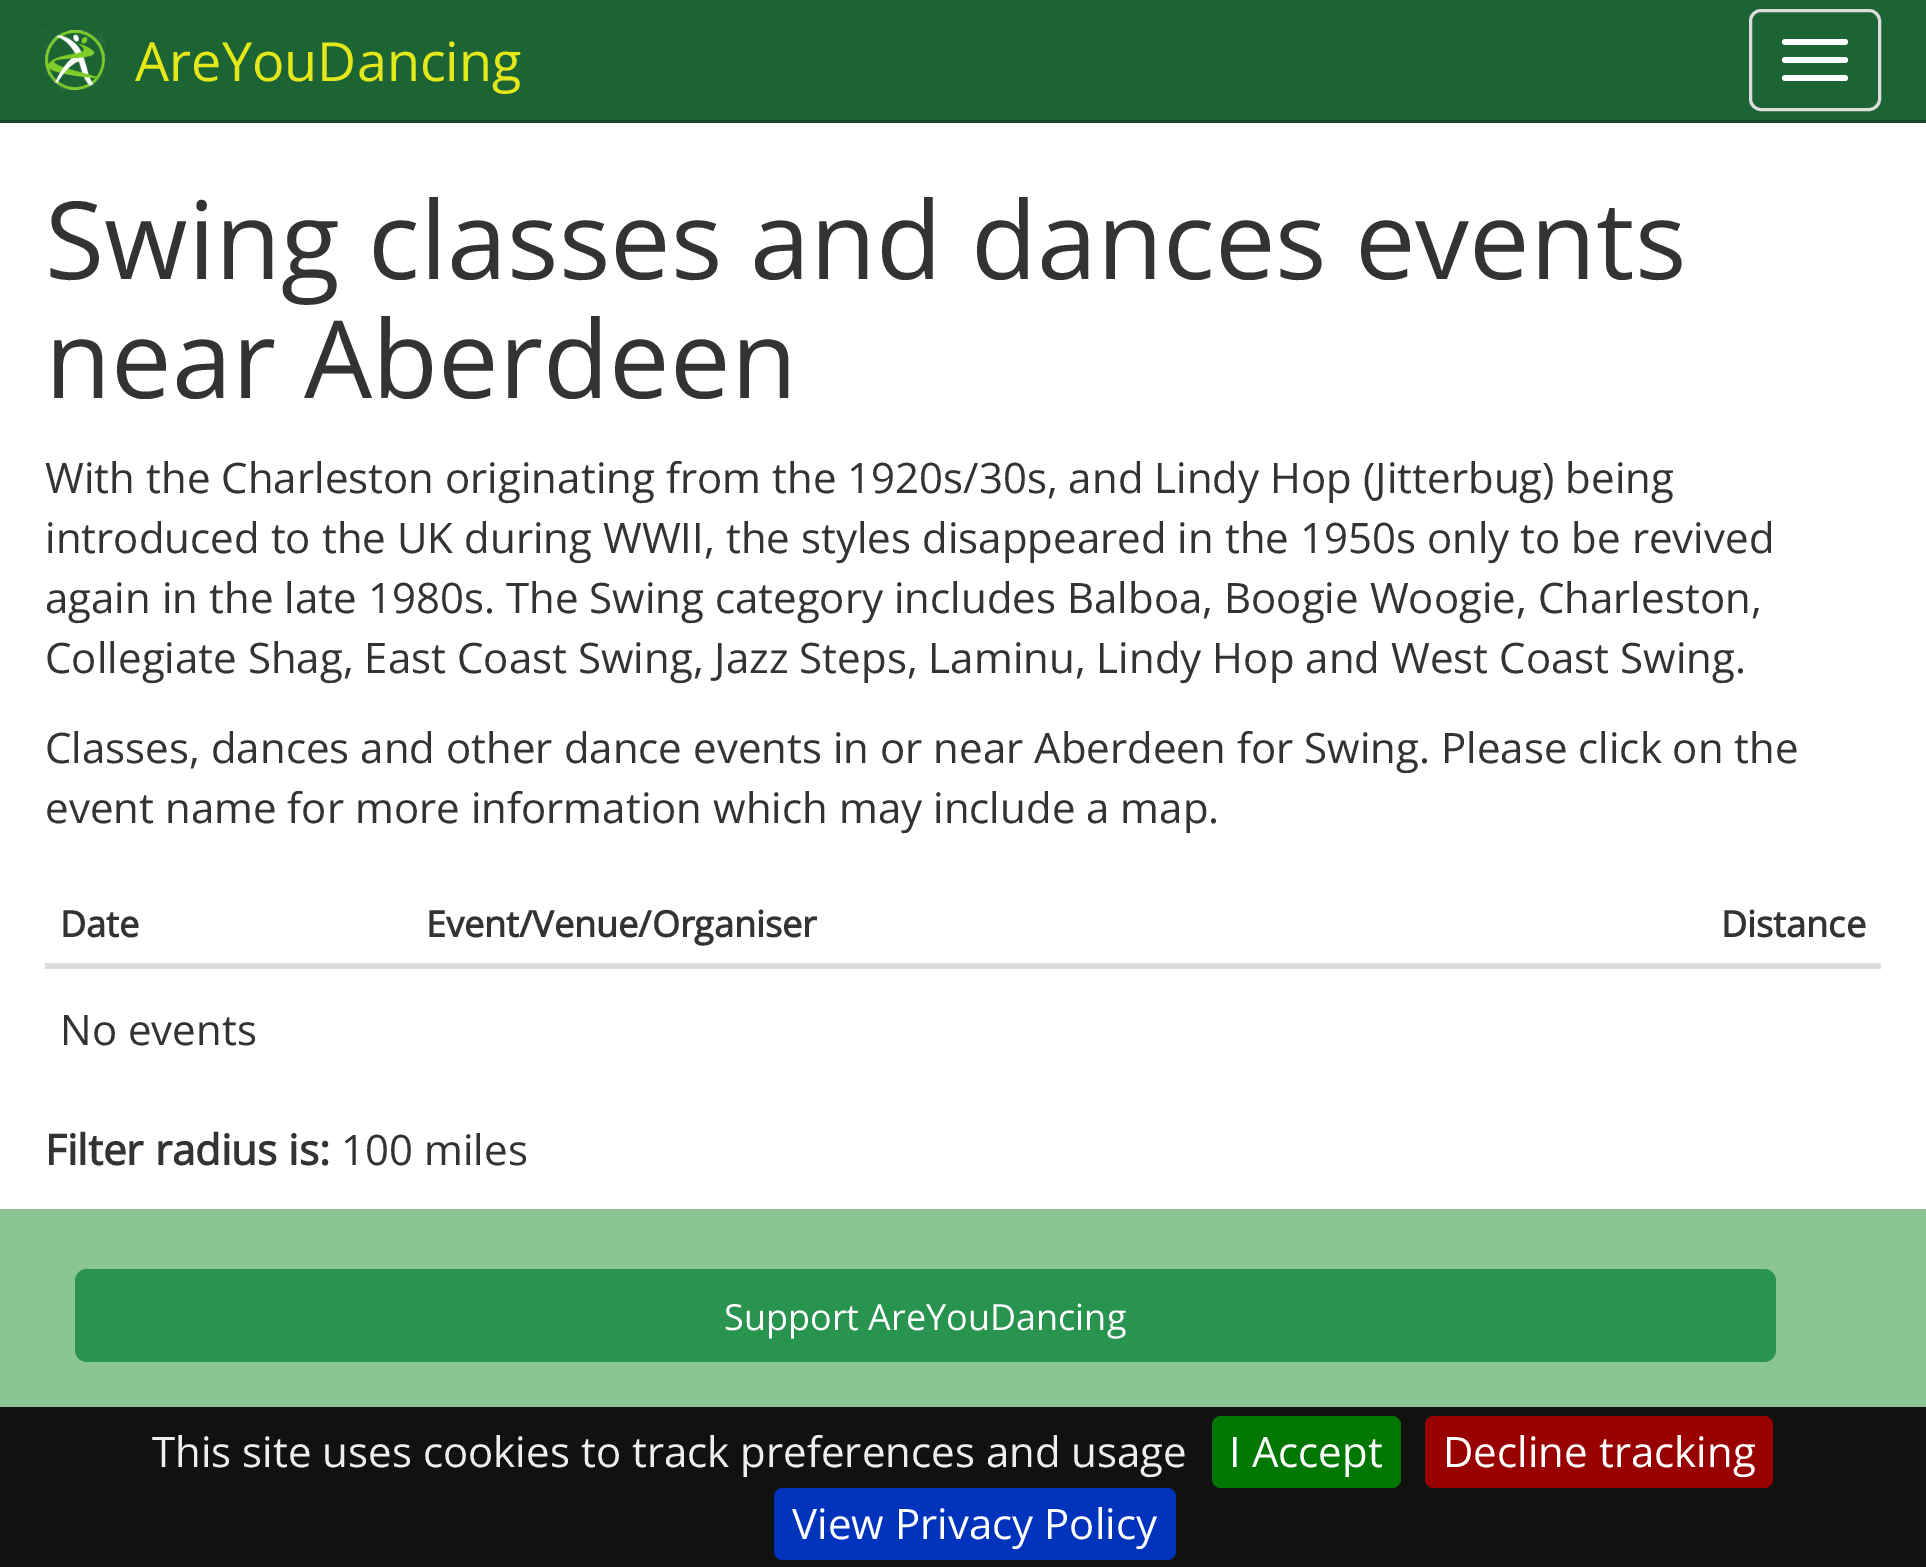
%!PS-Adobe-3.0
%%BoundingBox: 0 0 1926 1567
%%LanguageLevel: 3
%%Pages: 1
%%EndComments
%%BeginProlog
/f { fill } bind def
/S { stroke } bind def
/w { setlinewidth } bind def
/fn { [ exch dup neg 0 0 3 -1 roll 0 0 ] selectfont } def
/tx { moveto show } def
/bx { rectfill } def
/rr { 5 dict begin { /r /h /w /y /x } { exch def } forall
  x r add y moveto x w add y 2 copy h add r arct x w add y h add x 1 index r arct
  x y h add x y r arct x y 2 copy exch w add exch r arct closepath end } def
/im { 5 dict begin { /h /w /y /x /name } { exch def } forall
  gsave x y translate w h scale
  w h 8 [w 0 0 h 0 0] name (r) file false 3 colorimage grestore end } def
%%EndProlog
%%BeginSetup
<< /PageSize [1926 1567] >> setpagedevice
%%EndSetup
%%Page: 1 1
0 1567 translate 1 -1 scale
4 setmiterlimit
1 setgray
0 0 1926 1567 bx
0.114 0.392 0.204 setrgbcolor
0 0 1926 120 bx
0.086 0.29 0.153 setrgbcolor
0 120 1926 3 bx
(image0.raw) 45 30 60 60 im
/OpenSans-Regular 54 fn
0.894 0.91 0.102 setrgbcolor
(AreYouDancing) 135 81 tx
0.867 setgray
3 w
1750.5 10.5 129 99 10.5 rr S
1 setgray
1782 39 66 6 3 rr f
1782 57 66 6 3 rr f
1782 75 66 6 3 rr f
/OpenSans-Regular 108 fn
0.2 setgray
(Swing classes and dances events) 45 279 tx
(near Aberdeen) 45 398 tx
/OpenSans-Regular 42 fn
(With the Charleston originating from the 1920s/30s, and Lindy Hop \(Jitterbug\) being) 45 493 tx
(introduced to the UK during WWII, the styles disappeared in the 1950s only to be revived) 45 553 tx
(again in the late 1980s. The Swing category includes Balboa, Boogie Woogie, Charleston,) 45 613 tx
(Collegiate Shag, East Coast Swing, Jazz Steps, Laminu, Lindy Hop and West Coast Swing.) 45 673 tx
(Classes, dances and other dance events in or near Aberdeen for Swing. Please click on the) 45 763 tx
(event name for more information which may include a map.) 45 823 tx
0.867 setgray
45 963 1836 6 bx
/OpenSans-Bold 36 fn
0.2 setgray
(Date) 60 937 tx
(Event/Venue/Organiser) 426 937 tx
(Distance) 1721 937 tx
/OpenSans-Regular 42 fn
(No events) 60 1045 tx
/OpenSans-Bold 42 fn
(Filter radius is:) 45 1165 tx
/OpenSans-Regular 42 fn
(100 miles) 341 1165 tx
0.545 0.773 0.576 setrgbcolor
0 1209 1926 198 bx
0.161 0.576 0.314 setrgbcolor
75 1269 1701 93 12 rr f
/OpenSans-Regular 36 fn
1 setgray
(Support AreYouDancing) 724 1330 tx
0.067 setgray
0 1407 1926 160 bx
/OpenSans-Regular 42 fn
0.933 setgray
(This site uses cookies to track preferences and usage) 152 1467 tx
0 0.467 0 setrgbcolor
1212 1416 189 72 9 rr f
1 setgray
(I Accept) 1229 1467 tx
0.6 0 0 setrgbcolor
1425 1416 348 72 9 rr f
1 setgray
(Decline tracking) 1443 1467 tx
0 0.2 0.733 setrgbcolor
774 1488 402 72 9 rr f
1 setgray
(View Privacy Policy) 792 1539 tx
showpage
%%EOF
